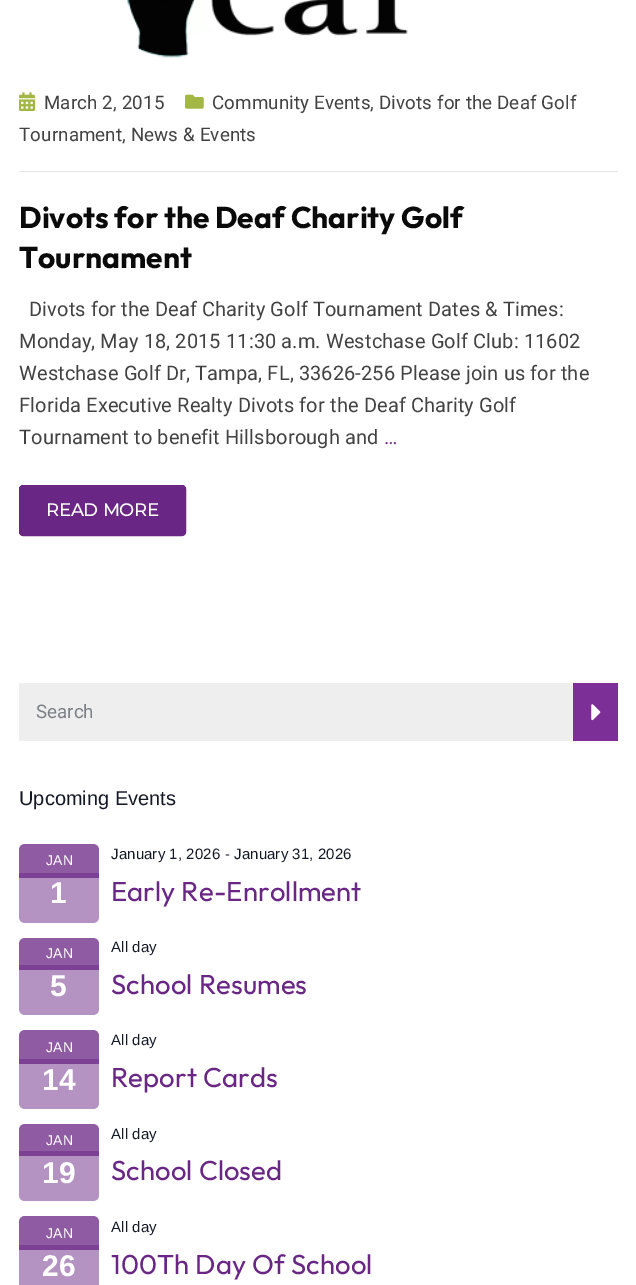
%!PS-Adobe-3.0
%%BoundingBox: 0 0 636 1285
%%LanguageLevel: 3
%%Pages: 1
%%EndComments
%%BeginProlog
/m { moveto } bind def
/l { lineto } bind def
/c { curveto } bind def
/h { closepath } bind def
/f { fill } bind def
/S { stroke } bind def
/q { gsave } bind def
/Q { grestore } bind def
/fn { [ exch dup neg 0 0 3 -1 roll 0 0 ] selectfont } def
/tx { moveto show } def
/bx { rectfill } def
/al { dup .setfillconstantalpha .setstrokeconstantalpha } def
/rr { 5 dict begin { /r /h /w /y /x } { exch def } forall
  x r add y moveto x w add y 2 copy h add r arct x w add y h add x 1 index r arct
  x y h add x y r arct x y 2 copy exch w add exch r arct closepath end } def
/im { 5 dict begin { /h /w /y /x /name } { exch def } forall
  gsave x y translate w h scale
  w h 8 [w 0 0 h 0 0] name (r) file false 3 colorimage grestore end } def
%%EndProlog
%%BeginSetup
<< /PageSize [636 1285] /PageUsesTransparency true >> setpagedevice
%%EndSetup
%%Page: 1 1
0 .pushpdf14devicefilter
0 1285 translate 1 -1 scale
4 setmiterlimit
1 setgray
0 0 636 1285 bx
0.706 0.576 0.761 setrgbcolor
19 1250 80 35 bx
(image0.raw) 127 0 281 58 im
0.902 setgray
19 171 599 1 bx
(image1.raw) 185 94 19 15 im
/Roboto-Regular 18.75 fn
0.259 setgray
212 109 m 0.12 0 (Community Events, Divots for the Deaf Golf) ashow
19 141 m 0.12 0 (Tournament, News & Events) ashow
(image2.raw) 19 92 17 20 im
44 109 m 0.12 0 (March 2, 2015) ashow
/Outfit-Bold 30 fn
0.039 setgray
(Divots for the Deaf Charity Golf) 19 228 tx
(Tournament) 19 268 tx
/Roboto-Regular 20 fn
0.259 setgray
29 316 m 0.12 0 (Divots for the Deaf Charity Golf Tournament Dates & Times:) ashow
19 348 m 0.12 0 (Monday, May 18, 2015 11:30 a.m. Westchase Golf Club: 11602) ashow
19 380 m 0.12 0 (Westchase Golf Dr, Tampa, FL, 33626-256 Please join us for the) ashow
19 412 m 0.12 0 (Florida Executive Realty Divots for the Deaf Charity Golf) ashow
19 444 m 0.12 0 (Tournament to benefit Hillsborough and) ashow
0.486 0.184 0.588 setrgbcolor
384 444 m 0.12 0 (…) ashow
0.412 0.149 0.522 setrgbcolor
19.5 485.5 166 50 3.5 rr q f Q
S
/Montserrat-Bold 17.5 fn
1 setgray
46 516 m 0.12 0 (READ MORE) ashow
0.933 setgray
19 683 554 58 bx
/Roboto-Regular 18.75 fn
0.482 0.502 0.522 setrgbcolor
(Search) 36 718 tx
0.486 0.184 0.588 setrgbcolor
573 683 45 58 bx
(image3.raw) 591 704 10 17 im
/LiberationSans-Regular 20 fn
0.078 0.094 0.153 setrgbcolor
(Upcoming Events) 19 805 tx
0.561 0.361 0.643 setrgbcolor
25 844 m 93 844 l 96.5 844 99 846.5 99 850 c 99 878 l 19 878 l 19 850 l 19 846.5 21.5 844 25 844 c h f
/LiberationSans-Regular 14 fn
1 setgray
46 865 m 0.12 0 (JAN) ashow
0.5 al
0.412 0.149 0.522 setrgbcolor
19 873 m 99 873 l 99 917 l 99 920.5 96.5 923 93 923 c 25 923 l 21.5 923 19 920.5 19 917 c h f
/LiberationSans-Bold 30 fn
1 al
1 setgray
50 903 m 0.12 0 (1) ashow
/LiberationSans-Regular 15 fn
0.078 0.094 0.153 setrgbcolor
111 859 m 0.12 0 (January 1, 2026 - January 31, 2026) ashow
/Outfit-Regular 27.5 fn
0.412 0.149 0.522 setrgbcolor
111 901 m 0.12 0 (Early Re-Enrollment) ashow
0.561 0.361 0.643 setrgbcolor
25 938 m 93 938 l 96.5 938 99 940.5 99 944 c 99 970 l 19 970 l 19 944 l 19 940.5 21.5 938 25 938 c h f
/LiberationSans-Regular 14 fn
1 setgray
46 958 m 0.12 0 (JAN) ashow
0.5 al
0.412 0.149 0.522 setrgbcolor
19 965 m 99 965 l 99 1009 l 99 1012.5 96.5 1015 93 1015 c 25 1015 l 21.5 1015 19 1012.5 19 1009 c h f
/LiberationSans-Bold 30 fn
1 al
1 setgray
50 996 m 0.12 0 (5) ashow
/LiberationSans-Regular 15 fn
0.078 0.094 0.153 setrgbcolor
111 952 m 0.12 0 (All day) ashow
/Outfit-Regular 27.5 fn
0.412 0.149 0.522 setrgbcolor
111 994 m 0.12 0 (School Resumes) ashow
0.561 0.361 0.643 setrgbcolor
25 1030 m 93 1030 l 96.5 1030 99 1032.5 99 1036 c 99 1064 l 19 1064 l 19 1036 l 19 1032.5 21.5 1030 25 1030 c h f
/LiberationSans-Regular 14 fn
1 setgray
46 1052 m 0.12 0 (JAN) ashow
0.5 al
0.412 0.149 0.522 setrgbcolor
19 1059 m 99 1059 l 99 1103 l 99 1106.5 96.5 1109 93 1109 c 25 1109 l 21.5 1109 19 1106.5 19 1103 c h f
/LiberationSans-Bold 30 fn
1 al
1 setgray
42 1090 m 0.12 0 (14) ashow
/LiberationSans-Regular 15 fn
0.078 0.094 0.153 setrgbcolor
111 1045 m 0.12 0 (All day) ashow
/Outfit-Regular 27.5 fn
0.412 0.149 0.522 setrgbcolor
111 1087 m 0.12 0 (Report Cards) ashow
0.561 0.361 0.643 setrgbcolor
25 1124 m 93 1124 l 96.5 1124 99 1126.5 99 1130 c 99 1156 l 19 1156 l 19 1130 l 19 1126.5 21.5 1124 25 1124 c h f
/LiberationSans-Regular 14 fn
1 setgray
46 1145 m 0.12 0 (JAN) ashow
0.5 al
0.412 0.149 0.522 setrgbcolor
19 1151 m 99 1151 l 99 1195 l 99 1198.5 96.5 1201 93 1201 c 25 1201 l 21.5 1201 19 1198.5 19 1195 c h f
/LiberationSans-Bold 30 fn
1 al
1 setgray
42 1183 m 0.12 0 (19) ashow
/LiberationSans-Regular 15 fn
0.078 0.094 0.153 setrgbcolor
111 1139 m 0.12 0 (All day) ashow
/Outfit-Regular 27.5 fn
0.412 0.149 0.522 setrgbcolor
111 1180 m 0.12 0 (School Closed) ashow
0.561 0.361 0.643 setrgbcolor
25 1216 m 93 1216 l 96.5 1216 99 1218.5 99 1222 c 99 1250 l 19 1250 l 19 1222 l 19 1218.5 21.5 1216 25 1216 c h f
0.486 0.255 0.584 setrgbcolor
19 1245 80 5 bx
/LiberationSans-Regular 14 fn
1 setgray
46 1238 m 0.12 0 (JAN) ashow
/LiberationSans-Bold 30 fn
42 1276 m 0.12 0 (26) ashow
/LiberationSans-Regular 15 fn
0.078 0.094 0.153 setrgbcolor
111 1232 m 0.12 0 (All day) ashow
/Outfit-Regular 27.5 fn
0.412 0.149 0.522 setrgbcolor
111 1274 m 0.12 0 (100Th Day Of School) ashow
.poppdf14devicefilter showpage
%%EOF
